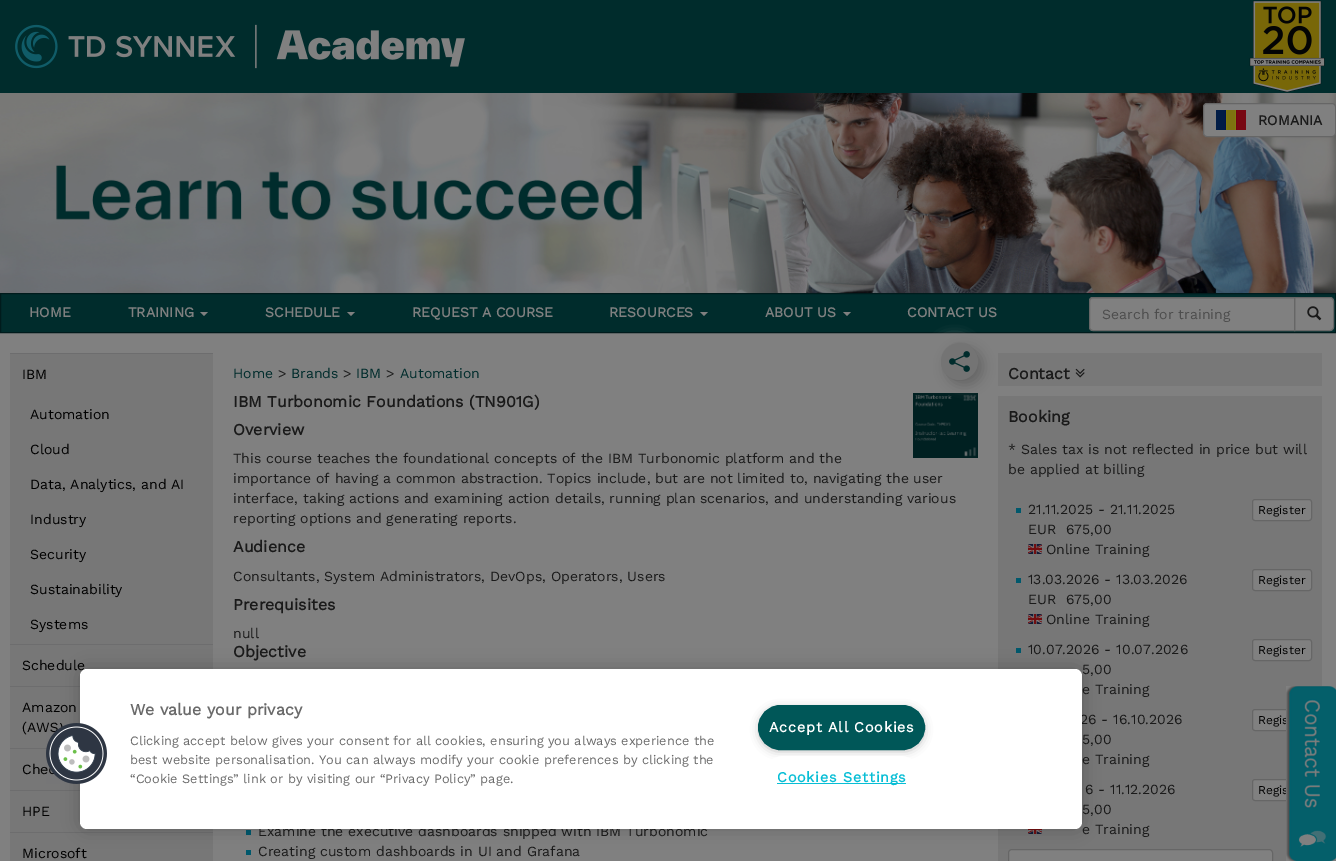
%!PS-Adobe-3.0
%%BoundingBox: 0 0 1336 861
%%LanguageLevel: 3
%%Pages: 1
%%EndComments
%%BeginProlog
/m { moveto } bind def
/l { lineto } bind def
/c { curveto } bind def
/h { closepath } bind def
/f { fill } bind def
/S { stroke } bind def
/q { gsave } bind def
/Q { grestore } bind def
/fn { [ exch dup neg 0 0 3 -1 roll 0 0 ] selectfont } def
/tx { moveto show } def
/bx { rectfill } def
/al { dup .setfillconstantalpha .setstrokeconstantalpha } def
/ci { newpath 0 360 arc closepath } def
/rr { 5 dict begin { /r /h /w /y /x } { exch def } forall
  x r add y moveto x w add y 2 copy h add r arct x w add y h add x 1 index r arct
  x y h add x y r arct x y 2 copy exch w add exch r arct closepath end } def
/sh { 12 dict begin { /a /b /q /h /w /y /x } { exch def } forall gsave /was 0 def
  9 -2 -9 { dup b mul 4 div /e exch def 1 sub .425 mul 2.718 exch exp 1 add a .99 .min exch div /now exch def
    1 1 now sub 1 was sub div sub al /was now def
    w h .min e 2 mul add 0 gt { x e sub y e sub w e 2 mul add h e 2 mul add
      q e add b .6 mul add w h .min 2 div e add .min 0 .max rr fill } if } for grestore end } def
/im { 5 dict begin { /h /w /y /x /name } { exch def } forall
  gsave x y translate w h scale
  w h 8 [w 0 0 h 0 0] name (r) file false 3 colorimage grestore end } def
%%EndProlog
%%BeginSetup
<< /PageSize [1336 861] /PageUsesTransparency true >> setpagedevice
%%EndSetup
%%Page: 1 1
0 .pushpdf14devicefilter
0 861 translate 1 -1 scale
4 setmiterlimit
0.502 setgray
0 0 1336 861 bx
0 0.173 0.173 setrgbcolor
0 0 1336 93 bx
(image0.raw) 15 24 450 45 im
(image1.raw) 1249 0 76 93 im
(image2.raw) 0 93 1336 200 im
0.502 setgray
1203.5 103.5 132 33 3.5 rr q f Q
0.4 setgray
S
(image3.raw) 1216 110 30 20 im
/WorkSans-Bold 14 fn
0.102 setgray
(ROMANIA) 1258 125 tx
0 0.173 0.173 setrgbcolor
0.5 293.5 m 1335.5 293.5 l 1335.5 332.5 l 0.5 332.5 l h q f Q
0 0.106 0.11 setrgbcolor
S
0.502 setgray
(HOME) 29 317 tx
(TRAINING) 128 317 tx
200 312 m 208 312 l 204 316 l h f
(SCHEDULE) 265 317 tx
347 312 m 355 312 l 351 316 l h f
(REQUEST A COURSE) 412 317 tx
(RESOURCES) 609 317 tx
700 312 m 708 312 l 704 316 l h f
(ABOUT US) 765 317 tx
843 312 m 851 312 l 847 316 l h f
(CONTACT US) 907 317 tx
1294.5 297.5 m 1330 297.5 l 1332 297.5 1333.5 299 1333.5 301 c 1333.5 327 l 1333.5 329 1332 330.5 1330 330.5 c 1294.5 330.5 l h q f Q
0.4 setgray
S
0.502 setgray
1093 297 m 1295 297 l 1295 331 l 1093 331 l 1091 331 1089 329 1089 327 c 1089 301 l 1089 299 1091 297 1093 297 c h f
0.463 setgray
1093 299 m 1294 299 l 1294 298 l 1092 298 l 1090 299 1090 300 1090 302 c 1090 300 1091 299 1093 299 c h f
0.4 setgray
1093 297.5 m 1294.5 297.5 l 1294.5 330.5 l 1093 330.5 l 1091 330.5 1089.5 329 1089.5 327 c 1089.5 301 l 1089.5 299 1091 297.5 1093 297.5 c h S
/WorkSans-Regular 14 fn
0.302 setgray
(Search for training) 1102 319 tx
(image4.raw) 1307 306 15 15 im
0.467 setgray
10 354 203 507 bx
0.427 0.427 0.431 setrgbcolor
10 353 203 1 bx
0 setgray
(IBM) 22 379 tx
(Automation) 30 419 tx
(Cloud) 30 454 tx
(Data, Analytics, and AI) 30 489 tx
(Industry) 30 524 tx
(Security) 30 559 tx
(Sustainability) 30 594 tx
(Systems) 30 629 tx
0.427 0.427 0.431 setrgbcolor
10 644 203 1 bx
0 setgray
(Schedule) 22 670 tx
0.427 0.427 0.431 setrgbcolor
10 686 70 1 bx
0 setgray
(Amazon) 22 712 tx
(\(AWS) 22 732 tx
0.427 0.427 0.431 setrgbcolor
10 748 37 1 bx
0 setgray
(Chec) 22 774 tx
0.427 0.427 0.431 setrgbcolor
10 790 70 1 bx
0 setgray
(HPE) 22 816 tx
0.427 0.427 0.431 setrgbcolor
10 832 203 1 bx
0 setgray
(Microsoft) 22 858 tx
0 0.173 0.173 setrgbcolor
(Home) 233 378 tx
0.102 setgray
(>) 278 378 tx
0 0.173 0.173 setrgbcolor
(Brands) 291 378 tx
0.102 setgray
(>) 343 378 tx
0 0.173 0.173 setrgbcolor
(IBM) 356 378 tx
0.102 setgray
(>) 386 378 tx
0 0.173 0.173 setrgbcolor
(Automation) 400 378 tx
0.455 setgray
959.5 342 m 969.5 342 978 350.5 978 361.5 c 978 372.5 969.5 381 959.5 381 c 949.5 381 941 372.5 941 361.5 c 941 350.5 949.5 342 959.5 342 c h f
(image6.raw) 913 393 65 65 im
0.502 setgray
936 338 37 37 18.5 6 1 sh
0.471 setgray
998 353 324 33 bx
0.467 setgray
998 396 324 465 bx
0.396 setgray
946 348 37 37 18.5 6 1 sh
0.455 setgray
959.5 361.5 18.5 ci f
(image5.raw) 949 351 21 21 im
/WorkSans-Bold 16 fn
0.102 setgray
(IBM Turbonomic Foundations \(TN901G\)) 233 407 tx
(Overview) 233 435 tx
/WorkSans-Regular 14 fn
(This course teaches the foundational concepts of the IBM Turbonomic platform and the) 233 463 tx
(importance of having a common abstraction. Topics include, but are not limited to, navigating the user) 233 483 tx
(interface, taking actions and examining action details, running plan scenarios, and understanding various) 233 503 tx
(reporting options and generating reports.) 233 523 tx
/WorkSans-Bold 16 fn
(Audience) 233 552 tx
/WorkSans-Regular 14 fn
(Consultants, System Administrators, DevOps, Operators, Users) 233 581 tx
/WorkSans-Bold 16 fn
(Prerequisites) 233 610 tx
/WorkSans-Regular 14 fn
(null) 233 638 tx
/WorkSans-Bold 16 fn
(Objective) 233 657 tx
0 0.345 0.424 setrgbcolor
246 830 5 5 bx
/WorkSans-Regular 14 fn
0.102 setgray
(Examine the executive dashboards shipped with IBM Turbonomic) 258 836 tx
0 0.345 0.424 setrgbcolor
246 850 5 5 bx
0.102 setgray
(Creating custom dashboards in UI and Grafana) 258 856 tx
/WorkSans-Bold 16 fn
(Contact) 1008 379 tx
(image7.raw) 1075 368 10 10 im
(Booking) 1008 422 tx
/WorkSans-Regular 14 fn
(* Sales tax is not reflected in price but will) 1008 454 tx
(be applied at billing) 1008 474 tx
0 0.345 0.424 setrgbcolor
1016 508 5 5 bx
0.102 setgray
(21.11.2025 - 21.11.2025) 1028 514 tx
0.502 setgray
1252.5 499.5 59 21 2.5 rr q f Q
0.4 setgray
S
/WorkSans-Regular 12 fn
0 setgray
(Register) 1258 514 tx
/WorkSans-Regular 14 fn
0.102 setgray
(EUR  675,00) 1028 534 tx
(image8.raw) 1028 544 14 10 im
(Online Training) 1046 554 tx
0 0.345 0.424 setrgbcolor
1016 578 5 5 bx
0.102 setgray
(13.03.2026 - 13.03.2026) 1028 584 tx
0.502 setgray
1252.5 569.5 59 21 2.5 rr q f Q
0.4 setgray
S
/WorkSans-Regular 12 fn
0 setgray
(Register) 1258 584 tx
/WorkSans-Regular 14 fn
0.102 setgray
(EUR  675,00) 1028 604 tx
(image8.raw) 1028 614 14 10 im
(Online Training) 1046 624 tx
0 0.345 0.424 setrgbcolor
1016 648 5 5 bx
0.102 setgray
(10.07.2026 - 10.07.2026) 1028 654 tx
0.502 setgray
1252.5 639.5 59 21 2.5 rr q f Q
0.4 setgray
S
/WorkSans-Regular 12 fn
0 setgray
(Register) 1258 654 tx
/WorkSans-Regular 14 fn
0.102 setgray
(5,00) 1082 674 tx
(e Training) 1082 694 tx
(26 - 16.10.2026) 1080 724 tx
0.502 setgray
1252.5 709.5 59 21 2.5 rr q f Q
0.4 setgray
S
/WorkSans-Regular 12 fn
0 setgray
(Regis) 1258 724 tx
/WorkSans-Regular 14 fn
0.102 setgray
(5,00) 1082 744 tx
(e Training) 1082 764 tx
(6 - 11.12.2026) 1085 794 tx
0.502 setgray
1252.5 779.5 59 21 2.5 rr q f Q
0.4 setgray
S
/WorkSans-Regular 12 fn
0 setgray
(Regis) 1258 794 tx
/WorkSans-Regular 14 fn
0.102 setgray
(5,00) 1082 814 tx
(image9.raw) 1028 829 14 5 im
(e Training) 1082 834 tx
0.502 setgray
1008.5 849.5 264 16 3.5 rr q f Q
0.4 setgray
S
(image10.raw) 1286 686 50 175 im
0 setgray
80 669 1002 160 7 9 0.2 sh
1 setgray
80 669 1002 160 7 rr f
(image11.raw) 46 723 61 61 im
/WorkSans-Bold 16 fn
0.412 setgray
(We value your privacy) 130 715 tx
/WorkSans-Regular 12.8 fn
(Clicking accept below gives your consent for all cookies, ensuring you always experience the) 130 745 tx
(best website personalisation. You can always modify your cookie preferences by clicking the) 130 764 tx
(“Cookie Settings” link or by visiting our “Privacy Policy” page.) 130 783 tx
0.6 setgray
761 710 161 39 19.5 5 1 sh
0 0.341 0.345 setrgbcolor
758.5 705.5 166 44 22 rr q f Q
S
/WorkSans-Bold 14.4 fn
1 setgray
769 732 m 0.75 0 (Accept All Cookies) ashow
762 756 160 43 21.5 rr f
0.031 0.745 0.835 setrgbcolor
777 783 129 1 bx
777 782 m 0.75 0 (Cookies Settings) ashow
.poppdf14devicefilter showpage
%%EOF
